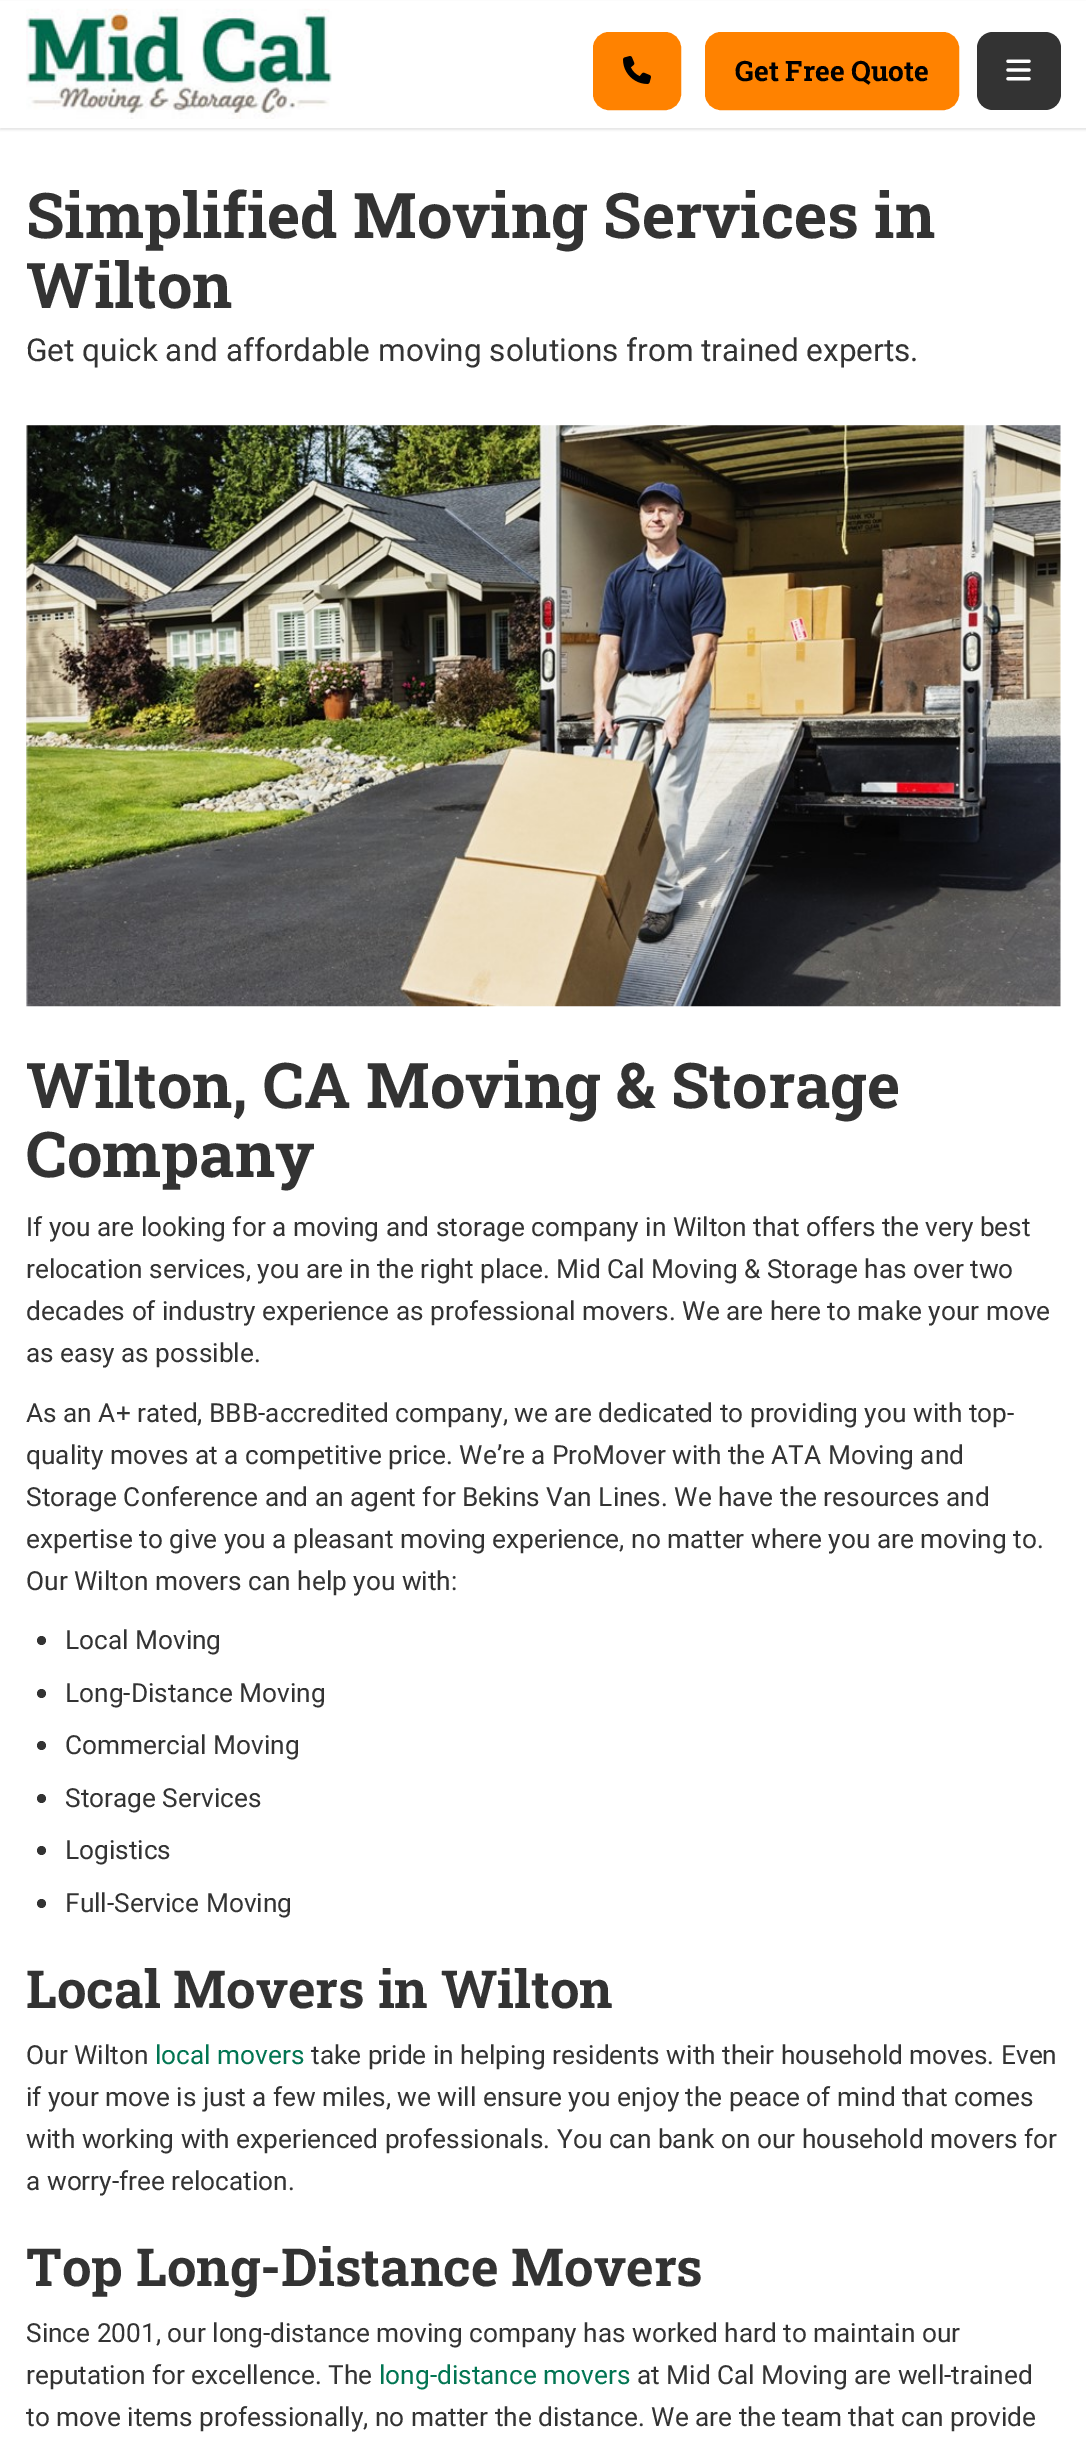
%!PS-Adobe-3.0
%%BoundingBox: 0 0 1086 2447
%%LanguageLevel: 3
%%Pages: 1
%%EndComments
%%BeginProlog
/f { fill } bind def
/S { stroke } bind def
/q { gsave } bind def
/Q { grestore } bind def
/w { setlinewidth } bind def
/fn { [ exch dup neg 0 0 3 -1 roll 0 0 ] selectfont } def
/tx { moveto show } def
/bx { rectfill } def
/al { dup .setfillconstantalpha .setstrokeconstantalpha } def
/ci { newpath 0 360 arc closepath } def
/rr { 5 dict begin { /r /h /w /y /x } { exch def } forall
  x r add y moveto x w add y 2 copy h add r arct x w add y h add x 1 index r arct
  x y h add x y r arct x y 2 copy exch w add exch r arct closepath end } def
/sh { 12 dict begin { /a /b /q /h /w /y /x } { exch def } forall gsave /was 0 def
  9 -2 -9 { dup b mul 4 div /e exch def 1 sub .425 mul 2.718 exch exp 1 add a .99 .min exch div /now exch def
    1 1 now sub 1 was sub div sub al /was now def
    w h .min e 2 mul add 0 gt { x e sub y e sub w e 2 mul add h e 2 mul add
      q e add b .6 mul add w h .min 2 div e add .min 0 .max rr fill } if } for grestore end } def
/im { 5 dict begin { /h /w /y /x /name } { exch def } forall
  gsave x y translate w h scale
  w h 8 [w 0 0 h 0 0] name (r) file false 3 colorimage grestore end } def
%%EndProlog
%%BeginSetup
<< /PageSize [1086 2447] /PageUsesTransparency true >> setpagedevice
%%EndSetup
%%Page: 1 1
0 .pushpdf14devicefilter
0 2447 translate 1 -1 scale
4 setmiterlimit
1 setgray
0 0 1086 2447 bx
0 setgray
0 2 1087 128 0 1 0.1 sh
1 setgray
0 1 1086 127 bx
(image0.raw) 26 8 306 111 im
1 0.51 0 setrgbcolor
594 33 86 76 15 rr q f Q
2 w
S
(image1.raw) 623 56 28 28 im
706 33 252 76 15 rr q f Q
S
/RobotoSlab-Bold 28 fn
0 setgray
(Get Free Quote) 735 81 tx
0.2 setgray
977 32 84 78 16 rr f
(image2.raw) 1006 59 25 22 im
/RobotoSlab-Bold 63 fn
(Simplified Moving Services in) 26 238 tx
(Wilton) 26 308 tx
/Roboto-Regular 31.5 fn
(Get quick and affordable moving solutions from trained experts.) 26 361 tx
(image3.raw) 26 425 1035 582 im
/RobotoSlab-Bold 63 fn
(Wilton, CA Moving & Storage) 26 1108 tx
(Company) 26 1177 tx
/Roboto-Regular 26.25 fn
(If you are looking for a moving and storage company in Wilton that offers the very best) 26 1236 tx
(relocation services, you are in the right place. Mid Cal Moving & Storage has over two) 26 1278 tx
(decades of industry experience as professional movers. We are here to make your move) 26 1320 tx
(as easy as possible.) 26 1362 tx
(As an A+ rated, BBB-accredited company, we are dedicated to providing you with top-) 26 1422 tx
(quality moves at a competitive price. We’re a ProMover with the ATA Moving and) 26 1464 tx
(Storage Conference and an agent for Bekins Van Lines. We have the resources and) 26 1506 tx
(expertise to give you a pleasant moving experience, no matter where you are moving to.) 26 1548 tx
(Our Wilton movers can help you with:) 26 1590 tx
41.5 1640.5 4.5 ci f
(Local Moving) 65 1649 tx
41.5 1693.5 4.5 ci f
(Long-Distance Moving) 65 1702 tx
41.5 1745.5 4.5 ci f
(Commercial Moving) 65 1754 tx
41.5 1798.5 4.5 ci f
(Storage Services) 65 1807 tx
41.5 1850.5 4.5 ci f
(Logistics) 65 1859 tx
41.5 1903.5 4.5 ci f
(Full-Service Moving) 65 1912 tx
/RobotoSlab-Bold 52.5 fn
(Local Movers in Wilton) 26 2008 tx
/Roboto-Regular 26.25 fn
(Our Wilton) 26 2064 tx
0.004 0.459 0.322 setrgbcolor
(local movers) 155 2064 tx
0.2 setgray
(take pride in helping residents with their household moves. Even) 311 2064 tx
(if your move is just a few miles, we will ensure you enjoy the peace of mind that comes) 26 2106 tx
(with working with experienced professionals. You can bank on our household movers for) 26 2148 tx
(a worry-free relocation.) 26 2190 tx
/RobotoSlab-Bold 52.5 fn
(Top Long-Distance Movers) 26 2286 tx
/Roboto-Regular 26.25 fn
(Since 2001, our long-distance moving company has worked hard to maintain our) 26 2342 tx
(reputation for excellence. The) 26 2384 tx
0.004 0.459 0.322 setrgbcolor
(long-distance movers) 379 2384 tx
0.2 setgray
(at Mid Cal Moving are well-trained) 637 2384 tx
(to move items professionally, no matter the distance. We are the team that can provide) 26 2426 tx
.poppdf14devicefilter showpage
%%EOF
